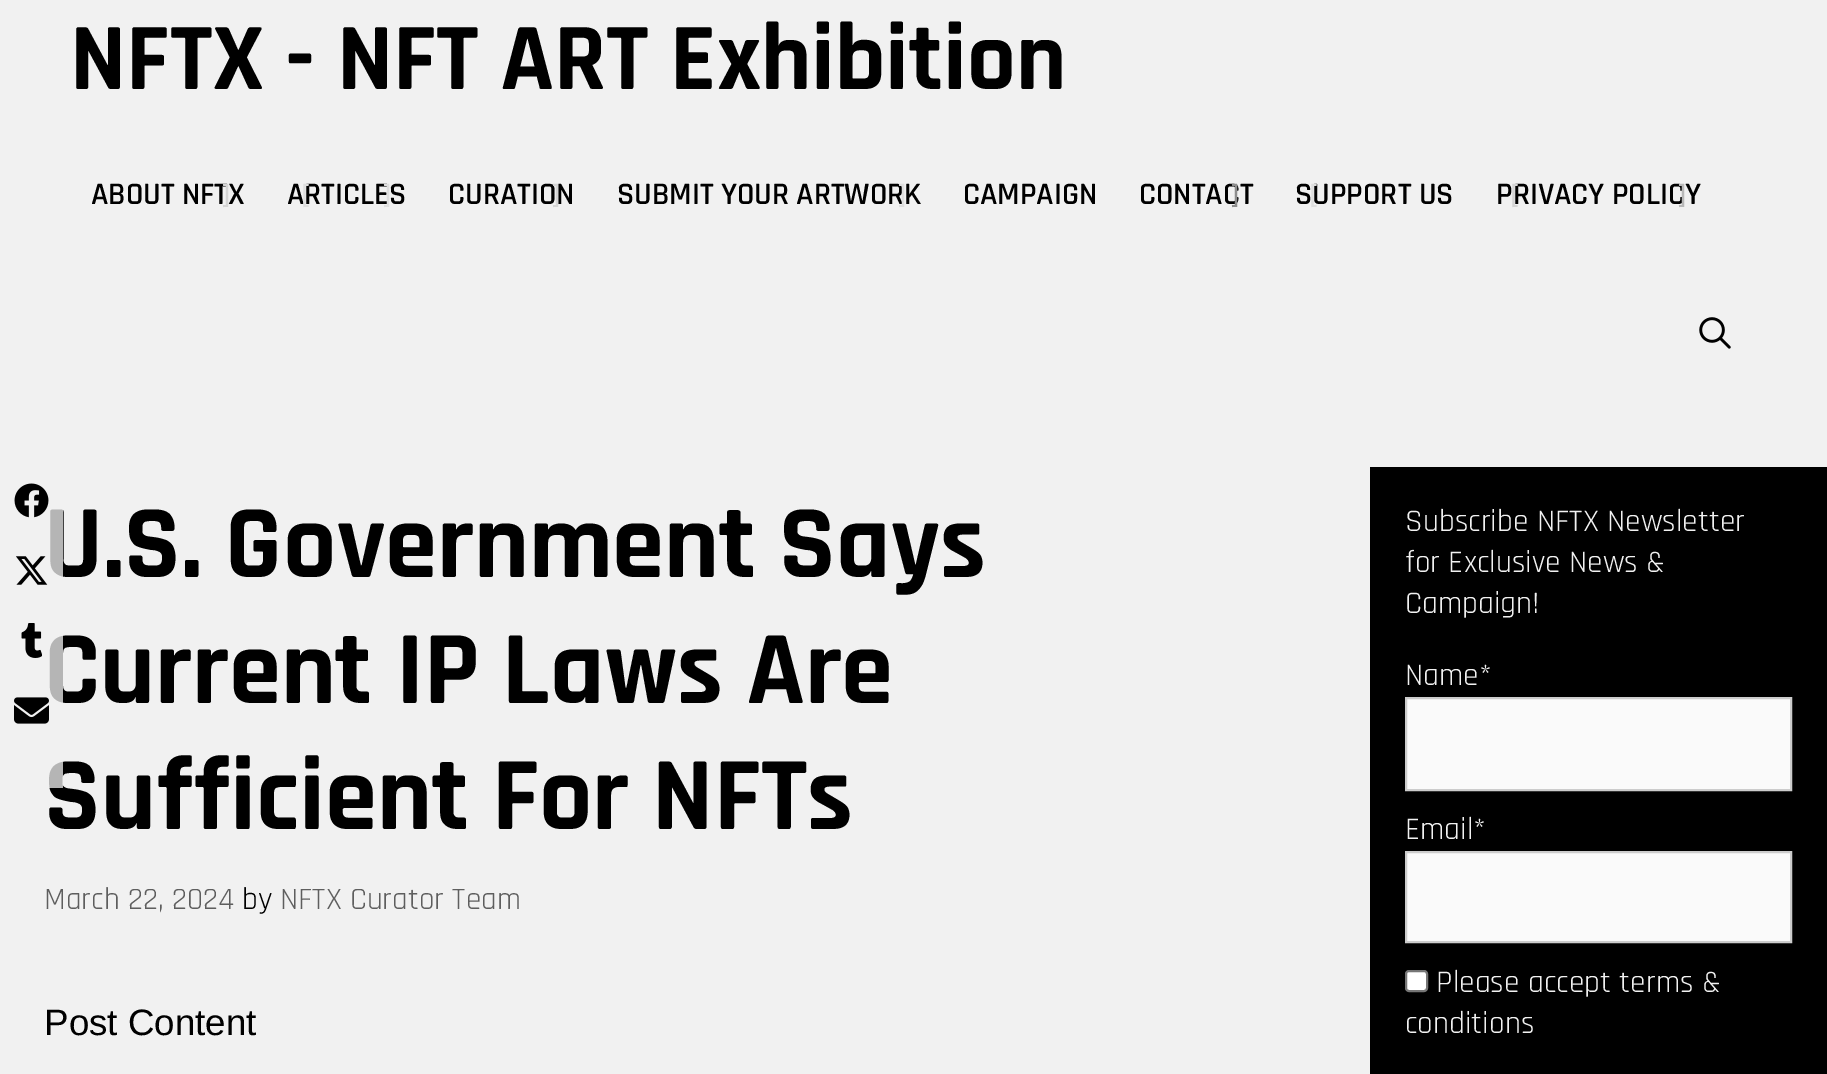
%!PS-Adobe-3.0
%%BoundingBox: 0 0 1827 1074
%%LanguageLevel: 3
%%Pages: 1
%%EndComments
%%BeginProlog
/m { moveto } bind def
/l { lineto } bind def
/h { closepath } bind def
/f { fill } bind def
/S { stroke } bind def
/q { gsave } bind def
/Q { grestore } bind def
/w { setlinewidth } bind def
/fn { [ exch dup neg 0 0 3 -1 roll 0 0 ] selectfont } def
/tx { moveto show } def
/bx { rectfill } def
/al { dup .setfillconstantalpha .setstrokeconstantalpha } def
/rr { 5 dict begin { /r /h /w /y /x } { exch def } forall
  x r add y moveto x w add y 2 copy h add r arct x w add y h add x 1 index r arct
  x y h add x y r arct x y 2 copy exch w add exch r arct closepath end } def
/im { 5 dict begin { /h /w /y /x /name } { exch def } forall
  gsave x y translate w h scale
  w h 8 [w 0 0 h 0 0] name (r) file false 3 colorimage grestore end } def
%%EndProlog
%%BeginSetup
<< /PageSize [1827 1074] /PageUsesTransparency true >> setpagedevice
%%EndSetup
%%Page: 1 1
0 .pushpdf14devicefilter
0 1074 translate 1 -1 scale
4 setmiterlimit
0.945 setgray
0 0 1827 1074 bx
/Rajdhani-Bold 96.25 fn
0 setgray
(NFTX - NFT ART Exhibition) 70 89 tx
/Rajdhani-SemiBold 31.5 fn
(ABOUT NFTX) 91 204 tx
0.835 setgray
(]) 221 204 tx
0 setgray
(ARTICLES) 287 204 tx
0.871 setgray
([) 301 204 tx
(]) 382 204 tx
0 setgray
(CURATION) 448 204 tx
0.835 setgray
(]) 551 204 tx
0 setgray
(SUBMIT YOUR ARTWORK) 617 204 tx
0.871 setgray
(]) 897 204 tx
0 setgray
(CAMPAIGN) 963 204 tx
(CONTACT) 1139 204 tx
0.553 setgray
(]) 1230 204 tx
0 setgray
(SUPPORT US) 1295 204 tx
0.871 setgray
([) 1309 204 tx
0 setgray
(PRIVACY POLICY) 1496 204 tx
0.835 setgray
([) 1510 204 tx
0.722 setgray
(]) 1677 204 tx
(image0.raw) 1699 317 32 32 im
/Rajdhani-Bold 105 fn
0 setgray
(U.S. Government Says) 44 577 tx
(Current IP Laws Are) 44 703 tx
(Sufficient For NFTs) 44 829 tx
0.75 al
0.945 setgray
48 509 15 279 bx
1 al
(image1.raw) 14 483 35 35 im
(image2.raw) 16 556 32 29 im
(image3.raw) 21 623 21 35 im
(image4.raw) 14 697 35 27 im
/Rajdhani-Regular 31.25 fn
0.369 setgray
(March 22, 2024) 44 909 tx
0 setgray
(by) 242 909 tx
0.369 setgray
(NFTX Curator Team) 280 909 tx
/LiberationSans-Regular 36.75 fn
0 setgray
(Post Content) 44 1035 tx
1370 467 457 607 bx
/Rajdhani-Regular 31.5 fn
0.945 setgray
(Subscribe NFTX Newsletter) 1405 531 tx
(for Exclusive News &) 1405 572 tx
(Campaign!) 1405 613 tx
(Name*) 1405 685 tx
0.98 setgray
1406 698 m 1791 698 l 1791 790 l 1406 790 l h q f Q
0.8 setgray
2 w
S
0.945 setgray
(Email*) 1405 839 tx
0.98 setgray
1406 852 m 1791 852 l 1791 942 l 1406 942 l h q f Q
0.8 setgray
S
1 setgray
1406 971 21 20 3 rr q f Q
0.463 setgray
S
0.945 setgray
(Please accept terms &) 1436 992 tx
(conditions) 1405 1033 tx
.poppdf14devicefilter showpage
%%EOF
